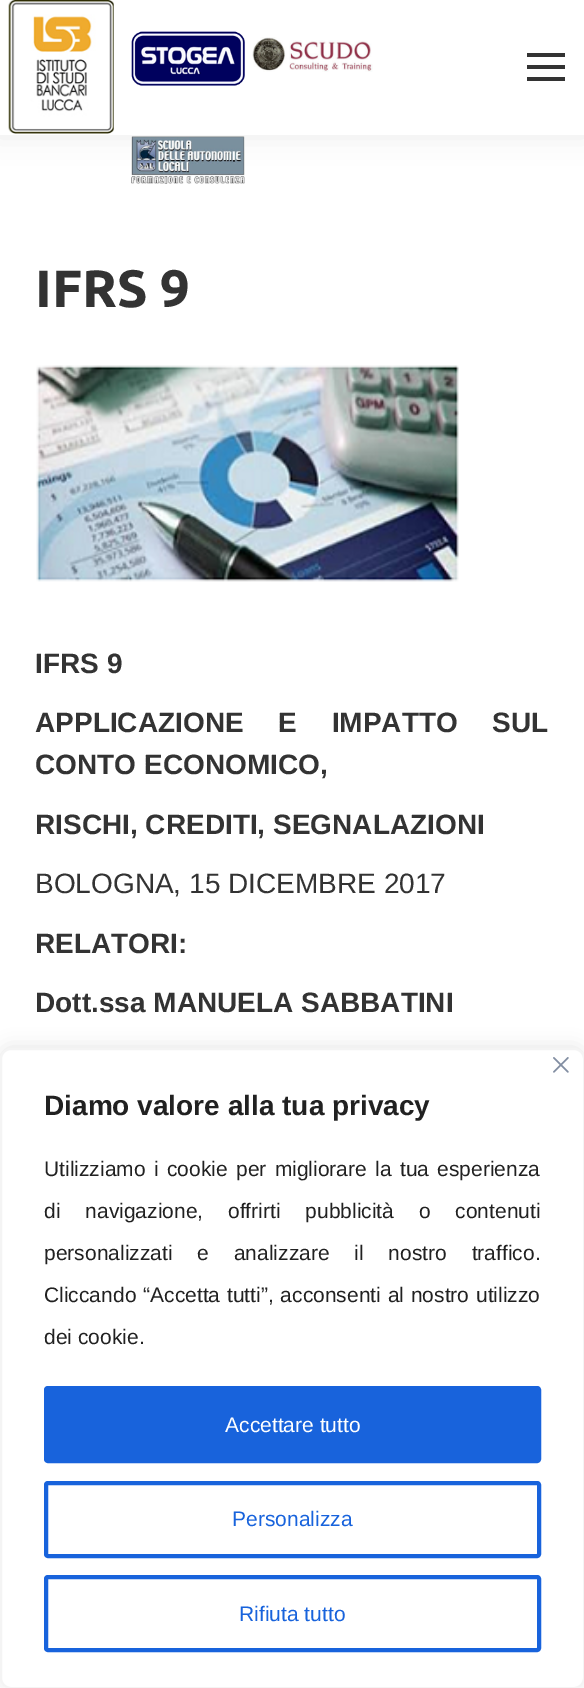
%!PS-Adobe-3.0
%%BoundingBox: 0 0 584 1688
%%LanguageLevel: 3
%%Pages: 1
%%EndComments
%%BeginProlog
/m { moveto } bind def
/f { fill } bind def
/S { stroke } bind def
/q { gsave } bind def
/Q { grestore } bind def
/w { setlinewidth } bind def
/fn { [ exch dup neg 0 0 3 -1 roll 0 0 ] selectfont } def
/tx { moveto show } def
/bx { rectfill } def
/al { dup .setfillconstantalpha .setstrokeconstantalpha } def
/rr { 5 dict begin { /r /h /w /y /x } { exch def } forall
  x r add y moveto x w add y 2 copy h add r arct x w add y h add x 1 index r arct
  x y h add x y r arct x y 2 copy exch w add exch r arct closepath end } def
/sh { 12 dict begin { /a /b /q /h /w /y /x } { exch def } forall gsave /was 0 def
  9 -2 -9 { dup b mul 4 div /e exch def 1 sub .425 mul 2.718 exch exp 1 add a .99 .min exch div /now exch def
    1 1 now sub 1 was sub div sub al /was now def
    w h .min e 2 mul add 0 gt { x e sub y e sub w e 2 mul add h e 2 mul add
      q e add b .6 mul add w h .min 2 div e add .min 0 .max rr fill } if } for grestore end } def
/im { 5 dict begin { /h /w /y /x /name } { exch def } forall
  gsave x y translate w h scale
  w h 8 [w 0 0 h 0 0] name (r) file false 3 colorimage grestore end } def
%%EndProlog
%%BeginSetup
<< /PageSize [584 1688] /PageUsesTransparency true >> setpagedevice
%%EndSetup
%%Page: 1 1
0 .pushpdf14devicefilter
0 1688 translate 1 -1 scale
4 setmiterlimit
1 setgray
0 0 584 1688 bx
0 setgray
-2 -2 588 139 0 13 0.07 sh
1 setgray
0 0 584 135 bx
(image0.raw) 8 0 106 134 im
(image1.raw) 131 31 114 55 im
(image2.raw) 252 37 121 35 im
(image3.raw) 131 136 114 48 im
0.2 setgray
527 53 38 4 bx
527 65 38 4 bx
527 77 38 4 bx
/Ubuntu-Bold 52.5 fn
(IFRS 9) 35 307 tx
(image4.raw) 36 365 423 217 im
/LiberationSans-Bold 28 fn
(IFRS 9) 35 673 tx
35 732 m 27 0 32 (APPLICAZIONE E IMPATTO SUL) widthshow
(CONTO ECONOMICO,) 35 774 tx
(RISCHI, CREDITI, SEGNALAZIONI) 35 834 tx
/LiberationSans-Regular 28 fn
(BOLOGNA, 15 DICEMBRE 2017) 35 893 tx
/LiberationSans-Bold 28 fn
(RELATORI:) 35 953 tx
(Dott.ssa MANUELA SABBATINI) 35 1012 tx
0.675 0.671 0.671 setrgbcolor
0 1047 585 640 11 9 0.3 sh
1 setgray
1 1049 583 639 10 rr q f Q
0.957 setgray
2 w
S
(image5.raw) 553 1057 16 16 im
0.129 setgray
(Diamo valore alla tua privacy) 44 1115 tx
/LiberationSans-Regular 21 fn
44 1176 m 2.5 0 32 (Utilizziamo i cookie per migliorare la tua esperienza) widthshow
44 1218 m 19 0 32 (di navigazione, offrirti pubblicità o contenuti) widthshow
44 1260 m 19 0 32 (personalizzati e analizzare il nostro traffico.) widthshow
44 1302 m 1 0 32 (Cliccando “Accetta tutti”, acconsenti al nostro utilizzo) widthshow
(dei cookie.) 44 1344 tx
0.094 0.388 0.863 setrgbcolor
46 1388 493 73 2 rr q f Q
4 w
S
1 setgray
(Accettare tutto) 225 1432 tx
0.094 0.388 0.863 setrgbcolor
46 1483 493 73 2 rr S
(Personalizza) 232 1526 tx
46 1577 493 73 2 rr S
(Rifiuta tutto) 239 1621 tx
.poppdf14devicefilter showpage
%%EOF
